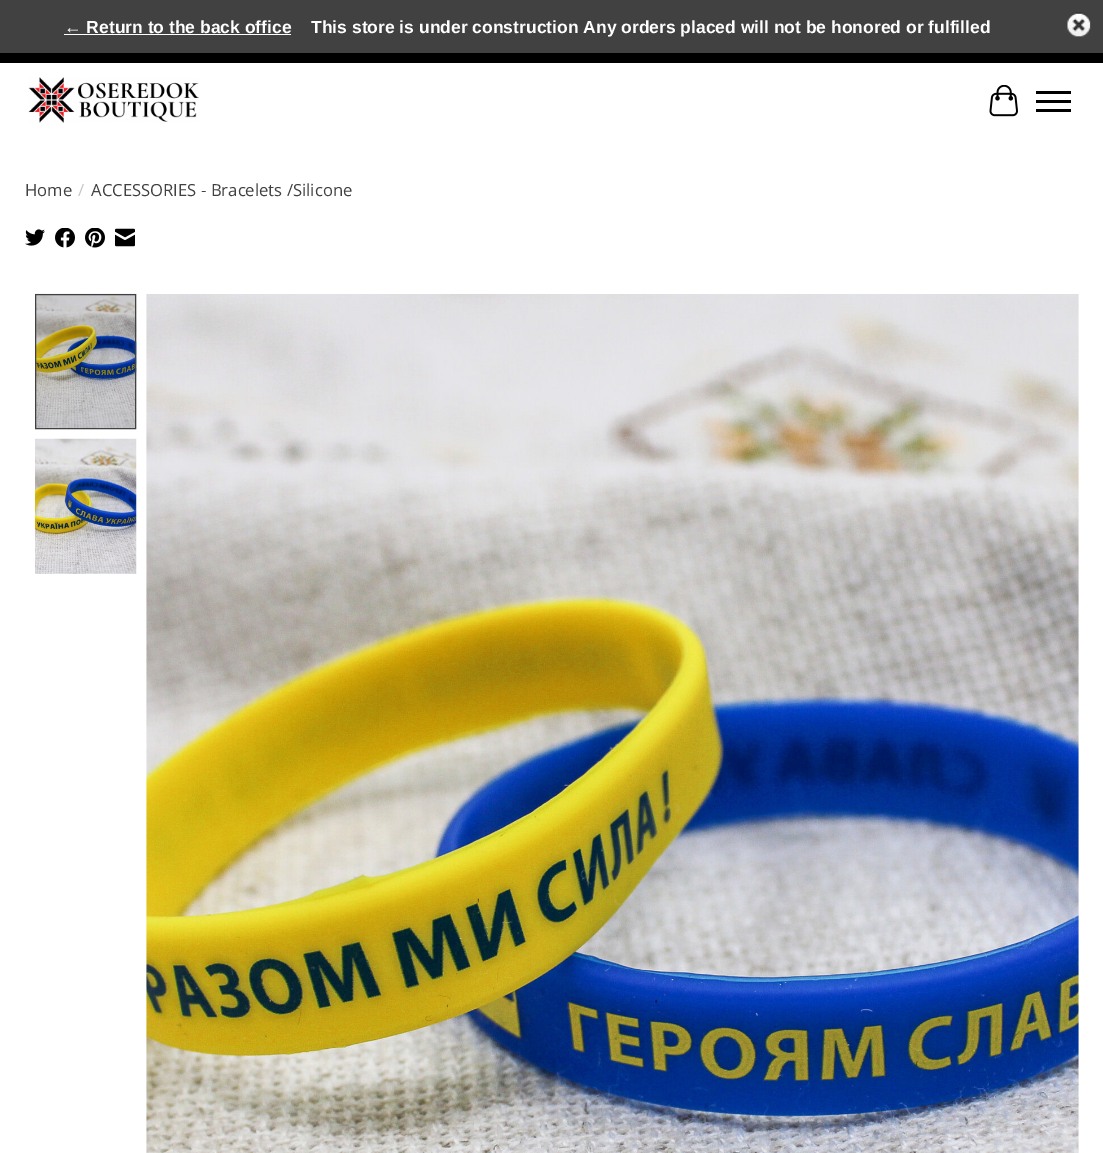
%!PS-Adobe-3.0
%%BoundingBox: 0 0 1103 1153
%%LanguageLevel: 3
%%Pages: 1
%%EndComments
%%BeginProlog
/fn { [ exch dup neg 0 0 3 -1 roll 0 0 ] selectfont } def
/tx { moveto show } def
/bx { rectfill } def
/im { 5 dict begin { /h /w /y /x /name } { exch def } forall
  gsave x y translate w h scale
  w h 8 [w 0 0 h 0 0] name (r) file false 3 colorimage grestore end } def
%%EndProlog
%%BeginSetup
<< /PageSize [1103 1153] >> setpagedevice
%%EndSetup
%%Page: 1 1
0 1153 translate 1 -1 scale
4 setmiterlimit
1 setgray
0 0 1103 1153 bx
0.255 setgray
0 0 1103 53 bx
/LiberationSans-Bold 17.5 fn
1 setgray
(← Return to the back office) 64 33 tx
64 34 227 1 bx
(This store is under construction Any orders placed will not be honored or fulfilled) 311 33 tx
(image0.raw) 1067 12 24 25 im
0 setgray
0 53 1103 10 bx
(image1.raw) 28 77 171 46 im
(image2.raw) 989 85 29 32 im
1036 100 35 3 bx
1036 91 35 3 bx
1036 109 35 3 bx
/OpenSans-Regular 16.7 fn
0.255 setgray
(Home) 25 196 tx
0.776 setgray
(/) 78 196 tx
0.255 setgray
(ACCESSORIES - Bracelets /Silicone) 91 196 tx
(image3.raw) 25 229 20 17 im
(image4.raw) 55 228 20 20 im
(image5.raw) 85 228 20 20 im
(image6.raw) 115 228 20 19 im
(image7.raw) 35 293 102 136 im
35.5 294.5 100 134 rectstroke
(image8.raw) 35 438 102 136 im
(image9.raw) 146 294 933 859 im
showpage
%%EOF
